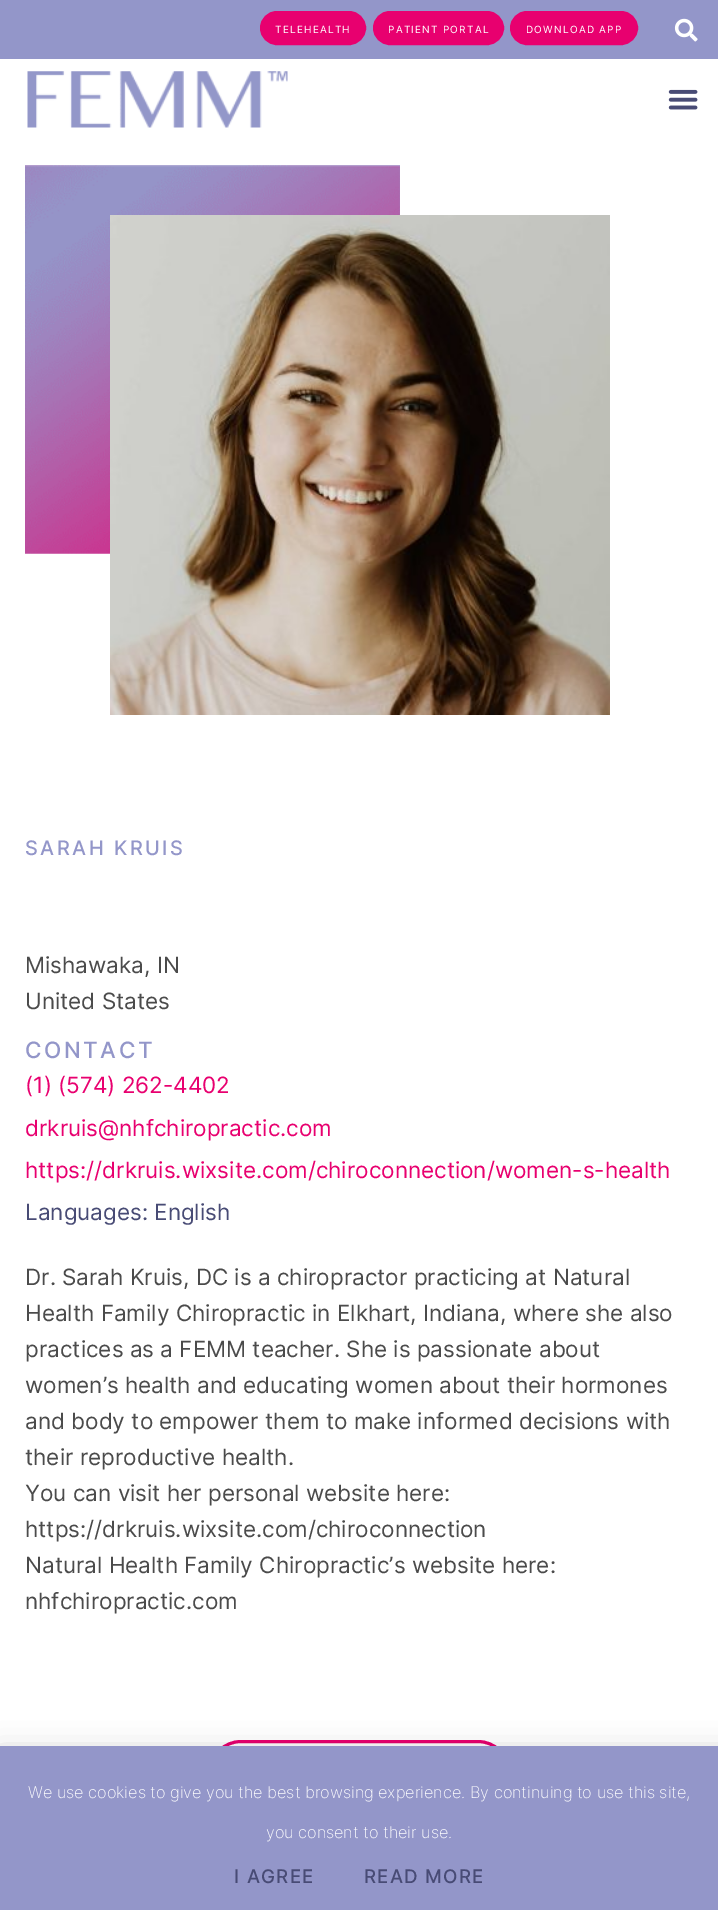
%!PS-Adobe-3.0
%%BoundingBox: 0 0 718 1910
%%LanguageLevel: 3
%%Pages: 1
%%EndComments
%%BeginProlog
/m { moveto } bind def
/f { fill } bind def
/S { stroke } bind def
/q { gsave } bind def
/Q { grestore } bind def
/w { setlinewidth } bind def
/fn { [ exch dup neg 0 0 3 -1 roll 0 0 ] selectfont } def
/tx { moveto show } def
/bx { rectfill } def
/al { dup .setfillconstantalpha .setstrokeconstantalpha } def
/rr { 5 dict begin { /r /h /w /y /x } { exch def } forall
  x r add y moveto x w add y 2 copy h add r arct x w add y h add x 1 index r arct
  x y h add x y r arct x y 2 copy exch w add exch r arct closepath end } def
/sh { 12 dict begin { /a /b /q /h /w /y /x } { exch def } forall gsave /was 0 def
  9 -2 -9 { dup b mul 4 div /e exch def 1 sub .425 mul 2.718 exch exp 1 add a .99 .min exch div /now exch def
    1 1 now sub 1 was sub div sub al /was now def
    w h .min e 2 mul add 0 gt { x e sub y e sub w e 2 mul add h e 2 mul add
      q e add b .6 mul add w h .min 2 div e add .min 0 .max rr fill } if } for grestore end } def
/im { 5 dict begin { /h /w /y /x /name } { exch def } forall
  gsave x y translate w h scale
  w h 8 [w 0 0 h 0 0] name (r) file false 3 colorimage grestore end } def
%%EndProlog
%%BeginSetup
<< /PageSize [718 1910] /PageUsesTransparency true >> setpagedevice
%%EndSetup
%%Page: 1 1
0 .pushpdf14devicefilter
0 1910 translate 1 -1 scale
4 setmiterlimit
1 setgray
0 0 718 1910 bx
0.576 0.588 0.788 setrgbcolor
0 0 718 59 bx
0.91 0 0.435 setrgbcolor
261.5 12.5 103 31 15.5 rr q f Q
3 w
S
/Inter-Regular 10 fn
1 setgray
275 33 m 1.25 0 (TELEHEALTH) ashow
0.91 0 0.435 setrgbcolor
374.5 12.5 128 31 15.5 rr q f Q
S
1 setgray
388 33 m 1.25 0 (PATIENT PORTAL) ashow
0.91 0 0.435 setrgbcolor
511.5 12.5 125 31 15.5 rr q f Q
S
1 setgray
526 33 m 1.25 0 (DOWNLOAD APP) ashow
(image0.raw) 674 18 24 24 im
(image1.raw) 27 71 261 57 im
(image2.raw) 668 89 30 21 im
(image3.raw) 25 165 375 389 im
(image4.raw) 110 215 500 500 im
/Inter-Medium 20 fn
0.576 0.588 0.788 setrgbcolor
25 855 m 2.5 0 (SARAH KRUIS) ashow
/Inter-Regular 22.5 fn
0.294 setgray
(Mishawaka, IN) 25 973 tx
(United States) 25 1009 tx
/Inter-Medium 22.5 fn
0.576 0.588 0.788 setrgbcolor
25 1058 m 2.5 0 (CONTACT) ashow
/Inter-Regular 22.5 fn
0.91 0 0.435 setrgbcolor
(\(1\) \(574\) 262-4402) 25 1093 tx
(drkruis@nhfchiropractic.com) 25 1136 tx
(https://drkruis.wixsite.com/chiroconnection/women-s-health) 25 1178 tx
0.282 0.294 0.459 setrgbcolor
(Languages: English) 25 1220 tx
0.294 setgray
(Dr. Sarah Kruis, DC is a chiropractor practicing at Natural) 25 1285 tx
(Health Family Chiropractic in Elkhart, Indiana, where she also) 25 1321 tx
(practices as a FEMM teacher. She is passionate about) 25 1357 tx
(women’s health and educating women about their hormones) 25 1393 tx
(and body to empower them to make informed decisions with) 25 1429 tx
(their reproductive health.) 25 1465 tx
(You can visit her personal website here:) 25 1501 tx
(https://drkruis.wixsite.com/chiroconnection) 25 1537 tx
(Natural Health Family Chiropractic’s website here:) 25 1573 tx
(nhfchiropractic.com) 25 1609 tx
0.91 0 0.435 setrgbcolor
210.5 1741.5 298 61 30.5 rr S
0 setgray
-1 1753 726 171 0 14.5 0.2 sh
0.576 0.588 0.788 setrgbcolor
0 1746 718 164 bx
/Inter-ExtraLight 16.25 fn
1 setgray
(We use cookies to give you the best browsing experience. By continuing to use this site,) 28 1798 tx
(you consent to their use.) 266 1838 tx
/Inter-Medium 18.75 fn
0.282 0.294 0.459 setrgbcolor
234 1883 m 1.25 0 (I AGREE) ashow
364 1883 m 1.25 0 (READ MORE) ashow
.poppdf14devicefilter showpage
%%EOF
